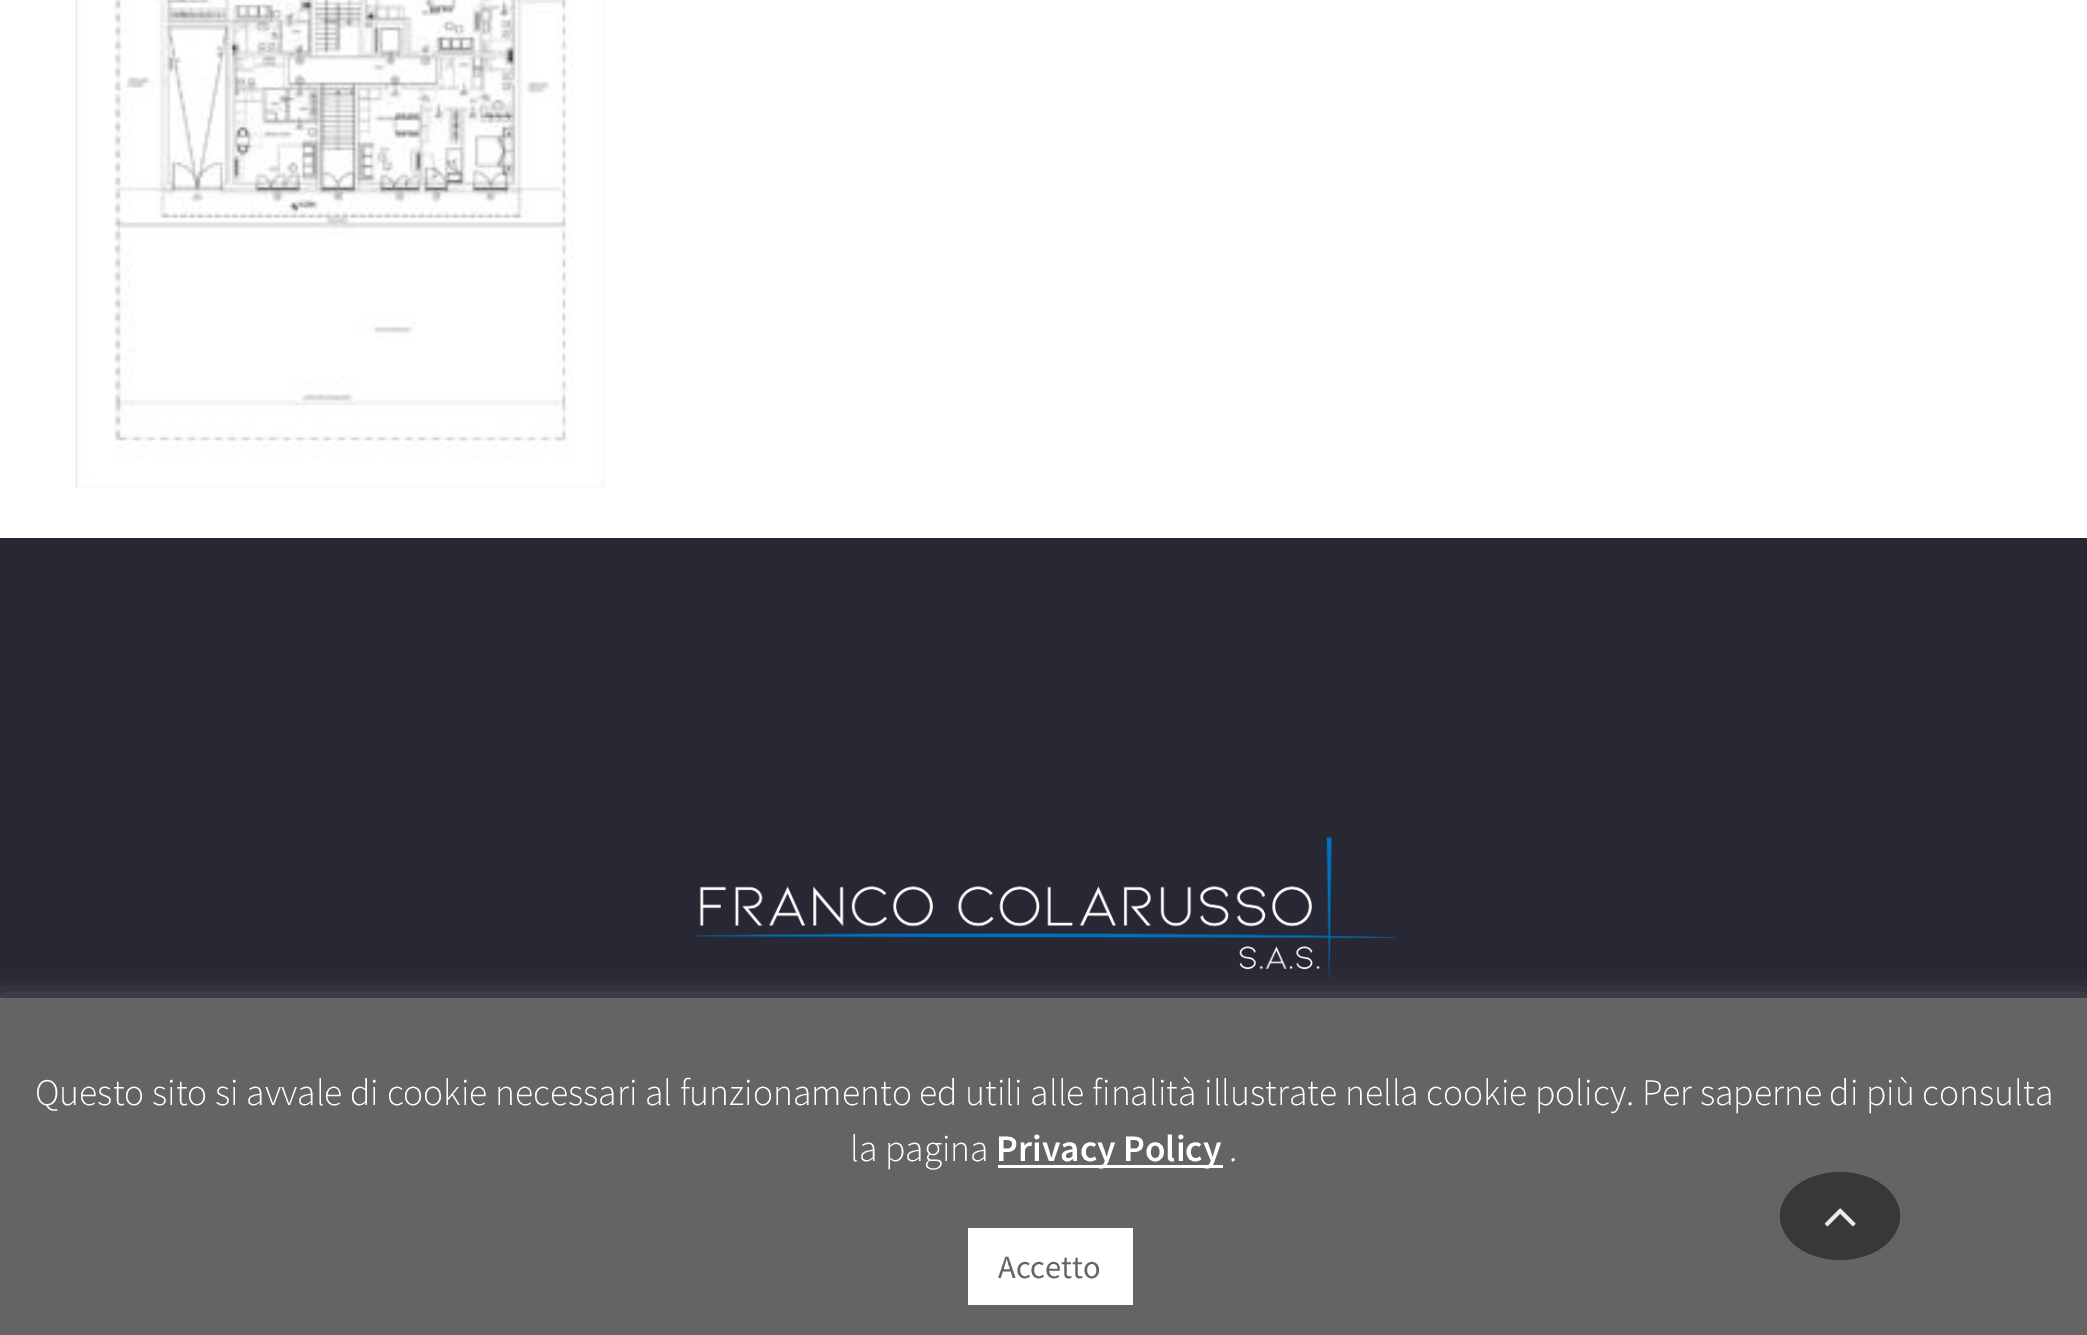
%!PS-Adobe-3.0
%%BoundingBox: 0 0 2087 1335
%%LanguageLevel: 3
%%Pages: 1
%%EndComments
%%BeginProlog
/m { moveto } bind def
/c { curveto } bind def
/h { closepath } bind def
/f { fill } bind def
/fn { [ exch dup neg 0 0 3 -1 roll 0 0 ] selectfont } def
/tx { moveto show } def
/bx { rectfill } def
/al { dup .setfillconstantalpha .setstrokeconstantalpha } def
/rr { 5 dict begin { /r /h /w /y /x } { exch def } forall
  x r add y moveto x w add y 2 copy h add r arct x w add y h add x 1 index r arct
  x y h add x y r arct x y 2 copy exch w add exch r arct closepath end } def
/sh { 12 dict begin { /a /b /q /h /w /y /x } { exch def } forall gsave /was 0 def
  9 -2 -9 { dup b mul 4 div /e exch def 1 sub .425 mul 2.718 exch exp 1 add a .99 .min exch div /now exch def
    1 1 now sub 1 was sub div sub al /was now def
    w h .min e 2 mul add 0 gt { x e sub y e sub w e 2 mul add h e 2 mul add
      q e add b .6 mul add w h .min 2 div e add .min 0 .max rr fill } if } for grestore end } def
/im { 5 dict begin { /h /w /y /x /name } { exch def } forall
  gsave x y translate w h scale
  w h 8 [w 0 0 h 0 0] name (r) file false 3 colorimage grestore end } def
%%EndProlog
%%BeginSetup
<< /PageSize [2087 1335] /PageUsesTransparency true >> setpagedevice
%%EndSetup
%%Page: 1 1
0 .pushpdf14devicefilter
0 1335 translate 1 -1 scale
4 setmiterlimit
1 setgray
0 0 2087 1335 bx
(image0.raw) 75 0 530 488 im
0.153 0.157 0.2 setrgbcolor
0 538 2087 460 bx
(image1.raw) 695 837 700 145 im
0.675 0.671 0.671 setrgbcolor
0 995 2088 338 0 12.5 0.3 sh
0.392 setgray
0 998 2087 337 bx
/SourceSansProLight-Light 37.5 fn
1 setgray
(Questo sito si avvale di cookie necessari al funzionamento ed utili alle finalità illustrate nella cookie policy. Per saperne di più consulta) 35 1105 tx
(la pagina) 850 1161 tx
998 1165 225 3 bx
/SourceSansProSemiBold-SemiBold 37.5 fn
(Privacy Policy) 996 1161 tx
/SourceSansProLight-Light 37.5 fn
(.) 1229 1161 tx
968 1228 165 77 bx
/SourceSansPro-Regular 32.5 fn
0.392 setgray
(Accetto) 998 1278 tx
0.22 setgray
1840 1172 m 1873 1172 1900 1191.5 1900 1216 c 1900 1240.5 1873 1260 1840 1260 c 1807 1260 1780 1240.5 1780 1216 c 1780 1191.5 1807 1172 1840 1172 c h f
(image2.raw) 1824 1208 32 19 im
.poppdf14devicefilter showpage
%%EOF
